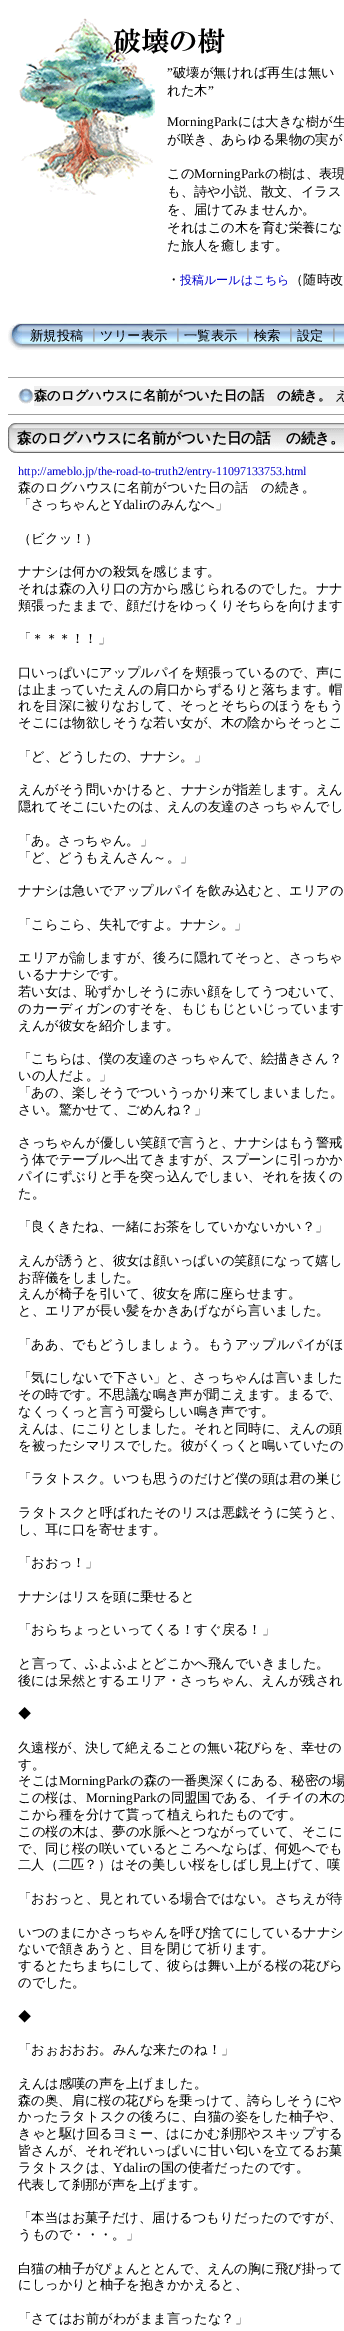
%!PS-Adobe-3.0
%%BoundingBox: 0 0 344 2331
%%LanguageLevel: 3
%%Pages: 1
%%EndComments
%%BeginProlog
/fn { [ exch dup neg 0 0 3 -1 roll 0 0 ] selectfont } def
/tx { moveto show } def
/bx { rectfill } def
/im { 5 dict begin { /h /w /y /x /name } { exch def } forall
  gsave x y translate w h scale
  w h 8 [w 0 0 h 0 0] name (r) file false 3 colorimage grestore end } def
%%EndProlog
%%BeginSetup
<< /PageSize [344 2331] >> setpagedevice
%%EndSetup
%%Page: 1 1
0 2331 translate 1 -1 scale
4 setmiterlimit
1 setgray
0 0 344 2331 bx
(image0.raw) 26 18 199 46 im
(image1.raw) 19 64 136 131 im
/LiberationSerif-Regular 13.3 fn
0 setgray
(”) 167 77 tx
/WenQuanYiZenHei-Medium 13.3 fn
(破壊が無ければ再生は無い) 173 77 tx
(れた木) 167 95 tx
/LiberationSerif-Regular 13.3 fn
(”) 208 95 tx
(MorningPark) 167 126 tx
/WenQuanYiZenHei-Medium 13.3 fn
(には大きな樹が生) 238 126 tx
(が咲き、あらゆる果物の実が) 167 144 tx
(この) 167 178 tx
/LiberationSerif-Regular 13.3 fn
(MorningPark) 194 178 tx
/WenQuanYiZenHei-Medium 13.3 fn
(の樹は、表現) 265 178 tx
(も、詩や小説、散文、イラス) 167 196 tx
(を、届けてみませんか。) 167 214 tx
(それはこの木を育む栄養にな) 167 232 tx
(た旅人を癒します。) 167 250 tx
(・) 167 284 tx
/WenQuanYiZenHei-Medium 12 fn
0 0 0.8 setrgbcolor
(投稿ルールはこちら) 180 284 tx
/WenQuanYiZenHei-Medium 13.3 fn
0 setgray
(（随時改) 290 284 tx
(image2.raw) 8 323 14 27 im
(image3.raw) 22 323 322 27 im
(新規投稿) 30 340 tx
0.6 setgray
(┃) 87 340 tx
0 setgray
(ツリー表示) 100 340 tx
0.6 setgray
(┃) 171 340 tx
0 setgray
(一覧表示) 184 340 tx
0.6 setgray
(┃) 241 340 tx
0 setgray
(検索) 254 340 tx
0.6 setgray
(┃) 284 340 tx
0 setgray
(設定) 297 340 tx
0.6 setgray
(┃) 327 340 tx
0.624 setgray
8 377 336 1 bx
(image4.raw) 18 388 16 16 im
0.933 setgray
34 386 310 20 bx
/WenQuanYiZenHei-Bold 13.3 fn
0 setgray
(森のログハウスに名前がついた日の話　の続き。) 34 400 tx
/WenQuanYiZenHei-Medium 13.3 fn
(え) 335 400 tx
0.624 setgray
8 414 336 1 bx
(image5.raw) 8 423 9 30 im
(image6.raw) 17 423 327 30 im
/WenQuanYiZenHei-Bold 14.7 fn
0 setgray
(森のログハウスに名前がついた日の話　の続き。) 17 443 tx
/LiberationSerif-Regular 12 fn
0 0 0.8 setrgbcolor
(http://ameblo.jp/the-road-to-truth2/entry-11097133753.html) 18 475 tx
/WenQuanYiZenHei-Medium 13.3 fn
0 setgray
(森のログハウスに名前がついた日の話　の続き。) 18 492 tx
(「さっちゃんと) 18 509 tx
/LiberationSerif-Regular 13.3 fn
(Ydalir) 113 509 tx
/WenQuanYiZenHei-Medium 13.3 fn
(のみんなへ」) 147 509 tx
(（ビクッ！）) 18 543 tx
(ナナシは何かの殺気を感じます。) 18 576 tx
(それは森の入り口の方から感じられるのでした。ナナ) 18 593 tx
(頬張ったままで、顔だけをゆっくりそちらを向けます) 18 610 tx
(「＊＊＊！！」) 18 643 tx
(口いっぱいにアップルパイを頬張っているので、声に) 18 677 tx
(は止まっていたえんの肩口からずるりと落ちます。帽) 18 694 tx
(れを目深に被りなおして、そっとそちらのほうをもう) 18 710 tx
(そこには物欲しそうな若い女が、木の陰からそっとこ) 18 727 tx
(「ど、どうしたの、ナナシ。」) 18 761 tx
(えんがそう問いかけると、ナナシが指差します。えん) 18 794 tx
(隠れてそこにいたのは、えんの友達のさっちゃんでし) 18 811 tx
(「あ。さっちゃん。」) 18 845 tx
(「ど、どうもえんさん～。」) 18 862 tx
(ナナシは急いでアップルパイを飲み込むと、エリアの) 18 895 tx
(「こらこら、失礼ですよ。ナナシ。」) 18 929 tx
(エリアが諭しますが、後ろに隠れてそっと、さっちゃ) 18 962 tx
(いるナナシです。) 18 979 tx
(若い女は、恥ずかしそうに赤い顔をしてうつむいて、) 18 996 tx
(のカーディガンのすそを、もじもじといじっています) 18 1013 tx
(えんが彼女を紹介します。) 18 1030 tx
(「こちらは、僕の友達のさっちゃんで、絵描きさん？) 18 1063 tx
(いの人だよ。」) 18 1080 tx
(「あの、楽しそうでついうっかり来てしまいました。) 18 1097 tx
(さい。驚かせて、ごめんね？」) 18 1114 tx
(さっちゃんが優しい笑顔で言うと、ナナシはもう警戒) 18 1147 tx
(う体でテーブルへ出てきますが、スプーンに引っかか) 18 1164 tx
(パイにずぶりと手を突っ込んでしまい、それを抜くの) 18 1181 tx
(た。) 18 1198 tx
(「良くきたね、一緒にお茶をしていかないかい？」) 18 1231 tx
(えんが誘うと、彼女は顔いっぱいの笑顔になって嬉し) 18 1265 tx
(お辞儀をしました。) 18 1282 tx
(えんが椅子を引いて、彼女を席に座らせます。) 18 1298 tx
(と、エリアが長い髪をかきあげながら言いました。) 18 1315 tx
(「ああ、でもどうしましょう。もうアップルパイがほ) 18 1349 tx
(「気にしないで下さい」と、さっちゃんは言いました) 18 1382 tx
(その時です。不思議な鳴き声が聞こえます。まるで、) 18 1399 tx
(なくっくっと言う可愛らしい鳴き声です。) 18 1416 tx
(えんは、にこりとしました。それと同時に、えんの頭) 18 1433 tx
(を被ったシマリスでした。彼がくっくと鳴いていたの) 18 1450 tx
(「ラタトスク。いつも思うのだけど僕の頭は君の巣じ) 18 1483 tx
(ラタトスクと呼ばれたそのリスは悪戯そうに笑うと、) 18 1517 tx
(し、耳に口を寄せます。) 18 1534 tx
(「おおっ！」) 18 1567 tx
(ナナシはリスを頭に乗せると) 18 1601 tx
(「おらちょっといってくる！すぐ戻る！」) 18 1634 tx
(と言って、ふよふよとどこかへ飛んでいきました。) 18 1668 tx
(後には呆然とするエリア・さっちゃん、えんが残され) 18 1685 tx
(◆) 18 1718 tx
(久遠桜が、決して絶えることの無い花びらを、幸せの) 18 1752 tx
(す。) 18 1769 tx
(そこは) 18 1785 tx
/LiberationSerif-Regular 13.3 fn
(MorningPark) 59 1785 tx
/WenQuanYiZenHei-Medium 13.3 fn
(の森の一番奥深くにある、秘密の場) 130 1785 tx
(この桜は、) 18 1802 tx
/LiberationSerif-Regular 13.3 fn
(MorningPark) 86 1802 tx
/WenQuanYiZenHei-Medium 13.3 fn
(の同盟国である、イチイの木の) 157 1802 tx
(こから種を分けて貰って植えられたものです。) 18 1819 tx
(この桜の木は、夢の水脈へとつながっていて、そこに) 18 1836 tx
(で、同じ桜の咲いているところへならば、何処へでも) 18 1853 tx
(二人（二匹？）はその美しい桜をしばし見上げて、嘆) 18 1869 tx
(「おおっと、見とれている場合ではない。さちえが待) 18 1903 tx
(いつのまにかさっちゃんを呼び捨てにしているナナシ) 18 1937 tx
(ないで頷きあうと、目を閉じて祈ります。) 18 1953 tx
(するとたちまちにして、彼らは舞い上がる桜の花びら) 18 1970 tx
(のでした。) 18 1987 tx
(◆) 18 2021 tx
(「おぉおおお。みんな来たのね！」) 18 2054 tx
(えんは感嘆の声を上げました。) 18 2088 tx
(森の奥、肩に桜の花びらを乗っけて、誇らしそうにや) 18 2105 tx
(かったラタトスクの後ろに、白猫の姿をした柚子や、) 18 2121 tx
(きゃと駆け回るヨミー、はにかむ刹那やスキップする) 18 2138 tx
(皆さんが、それぞれいっぱいに甘い匂いを立てるお菓) 18 2155 tx
(ラタトスクは、) 18 2172 tx
/LiberationSerif-Regular 13.3 fn
(Ydalir) 113 2172 tx
/WenQuanYiZenHei-Medium 13.3 fn
(の国の使者だったのです。) 147 2172 tx
(代表して刹那が声を上げます。) 18 2189 tx
(「本当はお菓子だけ、届けるつもりだったのですが、) 18 2222 tx
(うもので・・・。」) 18 2239 tx
(白猫の柚子がぴょんととんで、えんの胸に飛び掛って) 18 2273 tx
(にしっかりと柚子を抱きかかえると、) 18 2289 tx
(「さてはお前がわがまま言ったな？」) 18 2323 tx
showpage
%%EOF
